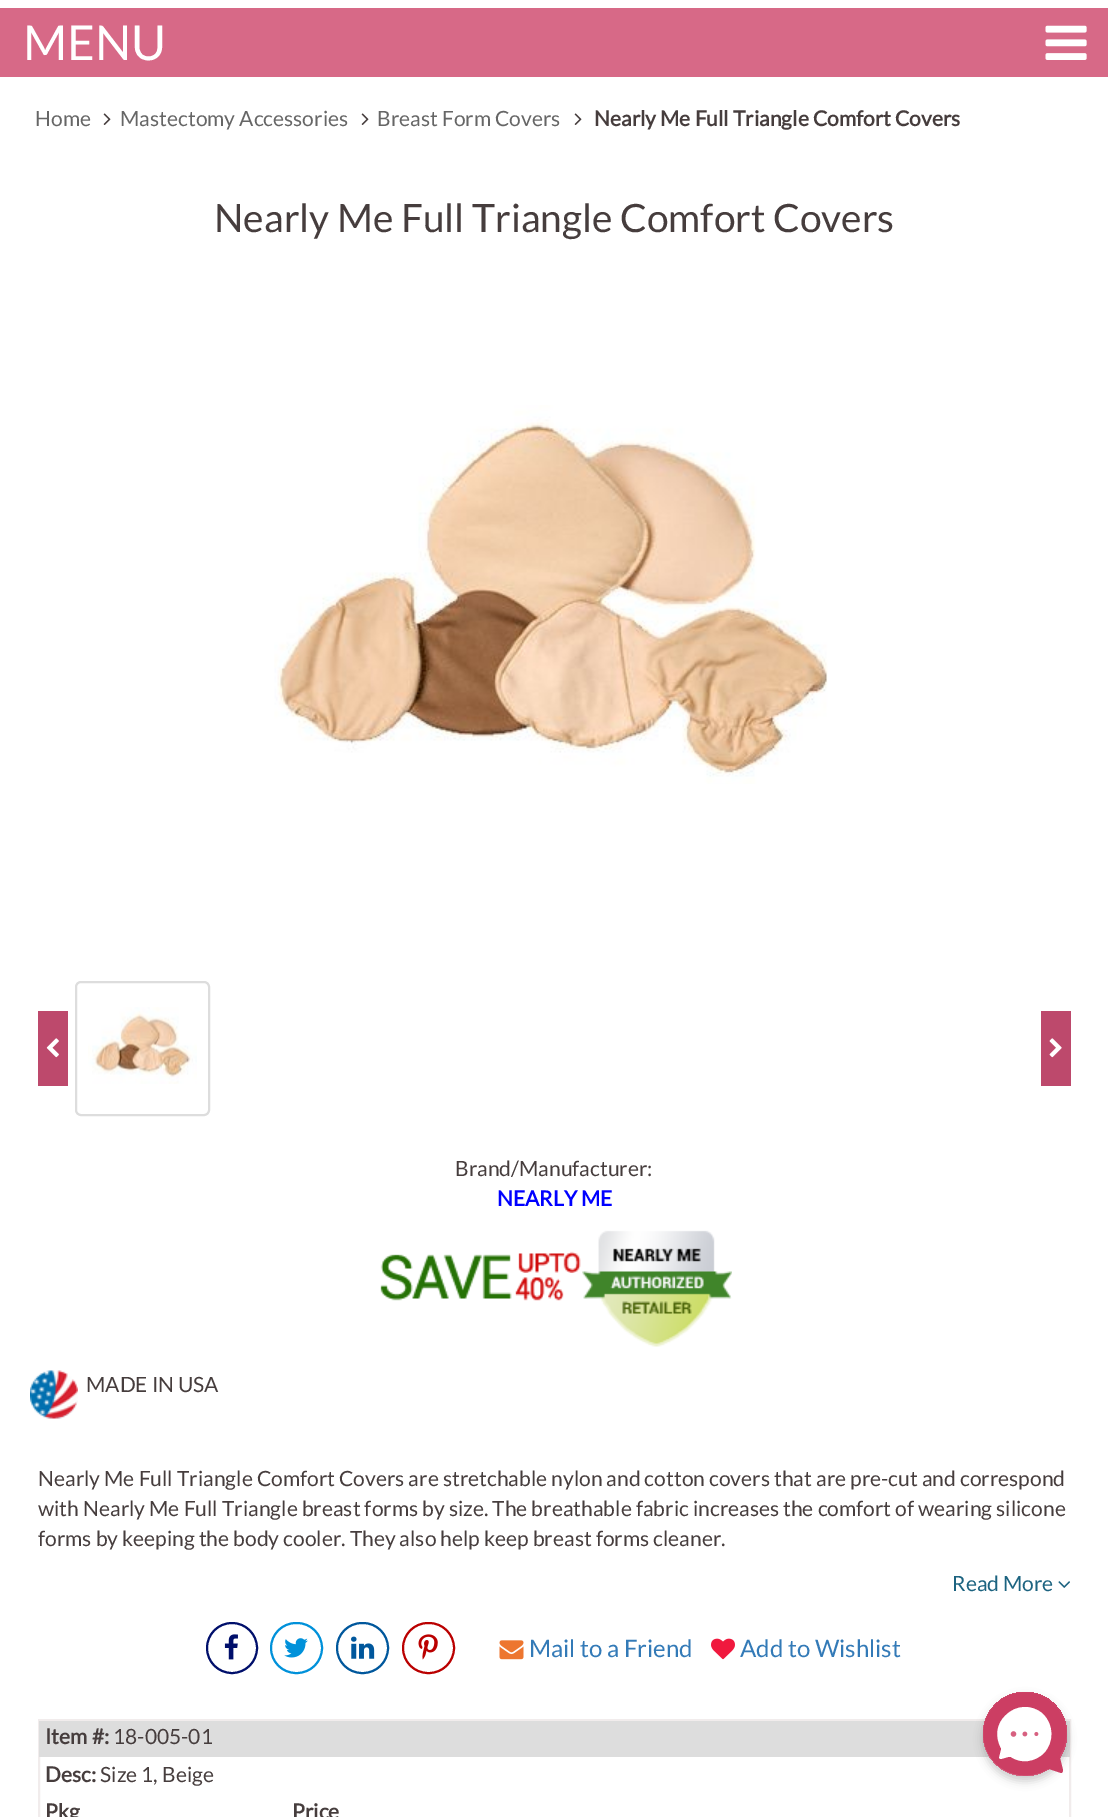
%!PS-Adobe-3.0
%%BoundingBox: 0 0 1108 1817
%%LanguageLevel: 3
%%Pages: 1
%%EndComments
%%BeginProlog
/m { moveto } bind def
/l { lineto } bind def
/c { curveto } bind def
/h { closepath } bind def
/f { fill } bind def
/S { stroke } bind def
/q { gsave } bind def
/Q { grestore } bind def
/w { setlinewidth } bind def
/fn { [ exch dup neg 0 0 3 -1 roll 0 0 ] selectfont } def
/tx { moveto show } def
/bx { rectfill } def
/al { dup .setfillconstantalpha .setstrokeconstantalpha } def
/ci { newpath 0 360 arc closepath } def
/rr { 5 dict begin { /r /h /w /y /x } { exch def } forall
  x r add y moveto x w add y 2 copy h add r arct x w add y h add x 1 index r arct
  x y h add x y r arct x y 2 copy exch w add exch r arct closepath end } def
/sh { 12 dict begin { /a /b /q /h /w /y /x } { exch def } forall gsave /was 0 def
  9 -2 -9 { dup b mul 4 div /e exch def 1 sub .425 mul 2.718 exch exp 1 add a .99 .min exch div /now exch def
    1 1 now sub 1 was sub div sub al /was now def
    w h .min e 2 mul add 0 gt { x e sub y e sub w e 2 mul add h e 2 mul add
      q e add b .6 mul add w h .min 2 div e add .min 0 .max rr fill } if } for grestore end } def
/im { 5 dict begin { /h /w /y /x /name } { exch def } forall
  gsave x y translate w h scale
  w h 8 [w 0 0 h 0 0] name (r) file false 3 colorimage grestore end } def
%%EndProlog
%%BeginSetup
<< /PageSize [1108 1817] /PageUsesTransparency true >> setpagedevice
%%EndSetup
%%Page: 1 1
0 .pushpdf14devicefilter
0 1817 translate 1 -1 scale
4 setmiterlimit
1 setgray
0 0 1108 1817 bx
0.843 0.412 0.529 setrgbcolor
0 8 1108 69 bx
/Lato-Regular 48 fn
1 setgray
(MENU) 23 60 tx
(image0.raw) 1045 25 42 35 im
/Lato-Regular 21 fn
0.4 setgray
(Home) 35 126 tx
(image1.raw) 103 113 8 12 im
(Mastectomy Accessories) 120 126 tx
(image1.raw) 361 113 8 12 im
(Breast Form Covers) 377 126 tx
(image1.raw) 574 113 8 12 im
/Lato-Bold 21 fn
0.275 0.239 0.239 setrgbcolor
(Nearly Me Full Triangle Comfort Covers) 594 126 tx
/Lato-Regular 39 fn
(Nearly Me Full Triangle Comfort Covers) 214 232 tx
(image2.raw) 274 405 554 379 im
0.741 0.286 0.424 setrgbcolor
38 1011 30 75 bx
(image3.raw) 46 1038 13 20 im
0.867 setgray
2 w
76 982 133 133 5 rr S
(image4.raw) 88 1007 109 77 im
0.741 0.286 0.424 setrgbcolor
1041 1011 30 75 bx
(image5.raw) 1049 1038 13 20 im
/Lato-Regular 21 fn
0.275 0.239 0.239 setrgbcolor
(Brand/Manufacturer:) 455 1176 tx
/Lato-Bold 21 fn
0 0 1 setrgbcolor
(NEARLY ME) 497 1206 tx
(image6.raw) 380 1254 132 47 im
(image7.raw) 518 1251 63 22 im
(image8.raw) 515 1277 49 24 im
(image9.raw) 582 1230 150 117 im
(image10.raw) 30 1370 48 49 im
/Lato-Regular 21 fn
0.275 0.239 0.239 setrgbcolor
(MADE IN USA) 86 1392 tx
(Nearly Me Full Triangle Comfort Covers are stretchable nylon and cotton covers that are pre-cut and correspond) 38 1486 tx
(with Nearly Me Full Triangle breast forms by size. The breathable fabric increases the comfort of wearing silicone) 38 1516 tx
(forms by keeping the body cooler. They also help keep breast forms cleaner.) 38 1546 tx
0.11 0.388 0.502 setrgbcolor
(Read More) 952 1591 tx
(image11.raw) 1058 1581 12 7 im
0 0.059 0.42 setrgbcolor
232 1648 25 ci S
(image12.raw) 224 1634 14 26 im
0 0.569 0.855 setrgbcolor
271 1623 51 50 25 rr S
(image13.raw) 284 1638 24 20 im
0 0.341 0.612 setrgbcolor
337 1623 51 50 25 rr S
(image14.raw) 351 1636 24 23 im
0.729 0 0 setrgbcolor
403 1623 51 50 25 rr S
(image15.raw) 418 1634 20 26 im
(image16.raw) 499 1640 25 20 im
/Lato-Regular 24 fn
0.2 0.478 0.718 setrgbcolor
(Mail to a Friend) 529 1657 tx
(image17.raw) 711 1638 24 22 im
(Add to Wishlist) 740 1657 tx
0.945 0.925 0.925 setrgbcolor
39 1720 1031 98 rectstroke
0.867 setgray
39 1721 1031 36 bx
/Lato-Bold 21 fn
0.275 0.239 0.239 setrgbcolor
(Item #:) 45 1744 tx
/Lato-Regular 21 fn
(18-005-01) 113 1744 tx
/Lato-Bold 21 fn
(Desc:) 45 1782 tx
/Lato-Regular 21 fn
(Size 1, Beige) 100 1782 tx
/Lato-Bold 21 fn
(Pkg) 45 1819 tx
(Price) 292 1819 tx
0 setgray
983 1697 84 84 42 4.5 0.2 sh
q 1025 1734 42 ci clip newpath
<< /ShadingType 2 /ColorSpace /DeviceRGB /Coords [983 1776 1067 1692] /Extend [true true] /Function << /FunctionType 2 /Domain [0 1] /C0 [0.839 0.42 0.533] /C1 [0.8 0.243 0.388] /N 1 >> >> shfill Q
0.8 0.243 0.388 setrgbcolor
1054 1705 m 1037 1688 1010 1688 994 1706 c 979 1722 980 1747 995 1763 c 1009 1777 1030 1779 1046 1770 c 1047 1769 1048 1769 1049 1769 c 1061 1773 l 1062 1773 1063 1772 1063 1770 c 1060 1758 l 1060 1757 1060 1756 1060 1755 c 1070 1739 1068 1718 1054 1705 c h f
1 setgray
1044 1753 m 1054 1742 1054 1725 1043 1714 c 1032 1704 1016 1705 1006 1715 c 996 1724 995 1737 1001 1748 c 1001 1750 l 999 1758 l 999 1758 1000 1759 1001 1759 c 1008 1757 l 1011 1757 l 1021 1764 1035 1762 1044 1753 c h f
(image18.raw) 1010 1731 29 6 im
.poppdf14devicefilter showpage
%%EOF
